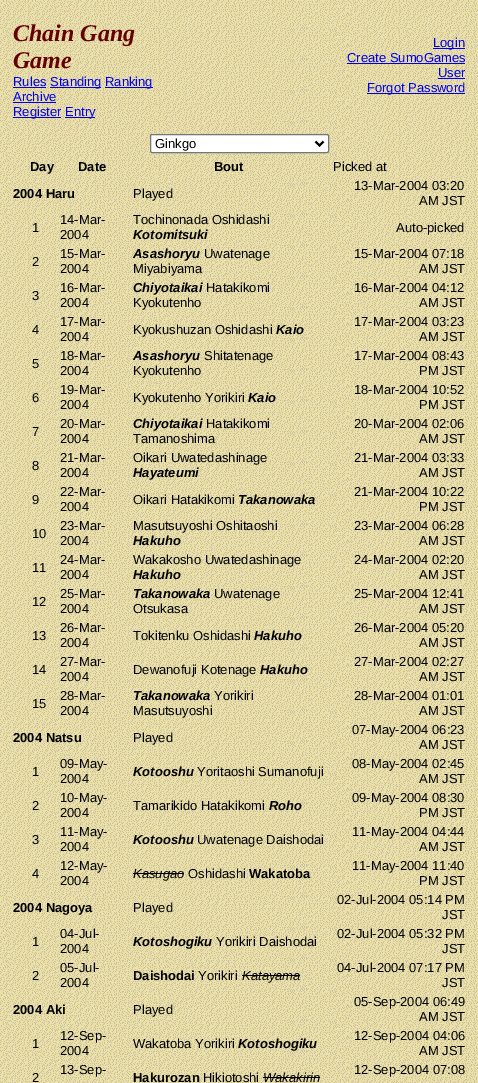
%!PS-Adobe-3.0
%%BoundingBox: 0 0 478 1083
%%LanguageLevel: 3
%%Pages: 1
%%EndComments
%%BeginProlog
/m { moveto } bind def
/l { lineto } bind def
/f { fill } bind def
/S { stroke } bind def
/q { gsave } bind def
/Q { grestore } bind def
/w { setlinewidth } bind def
/fn { [ exch dup neg 0 0 3 -1 roll 0 0 ] selectfont } def
/tx { moveto show } def
/bx { rectfill } def
/rr { 5 dict begin { /r /h /w /y /x } { exch def } forall
  x r add y moveto x w add y 2 copy h add r arct x w add y h add x 1 index r arct
  x y h add x y r arct x y 2 copy exch w add exch r arct closepath end } def
/im { 5 dict begin { /h /w /y /x /name } { exch def } forall
  gsave x y translate w h scale
  w h 8 [w 0 0 h 0 0] name (r) file false 3 colorimage grestore end } def
%%EndProlog
%%BeginSetup
<< /PageSize [478 1083] >> setpagedevice
%%EndSetup
%%Page: 1 1
0 1083 translate 1 -1 scale
4 setmiterlimit
1 setgray
0 0 478 1083 bx
(image0.raw) 0 0 478 1083 im
/LiberationSerif-BoldItalic 24 fn
0.4 0 0 setrgbcolor
(Chain Gang) 13 41 tx
(Game) 13 68 tx
/LiberationSans-Regular 13 fn
0 0 0.933 setrgbcolor
(Rules) 13 86 tx
13 87 33 1 bx
50 87 51 1 bx
(Standing) 50 86 tx
105 87 48 1 bx
(Ranking) 105 86 tx
(Archive) 13 101 tx
13 102 43 1 bx
13 117 48 1 bx
(Register) 13 116 tx
65 117 30 1 bx
(Entry) 65 116 tx
433 48 32 1 bx
(Login) 433 47 tx
(Create SumoGames) 347 62 tx
347 63 118 1 bx
(User) 438 77 tx
438 78 27 1 bx
367 93 98 1 bx
(Forgot Password) 367 92 tx
1 setgray
150.5 134.5 178 18 1.5 rr q f Q
0.463 setgray
S
0 setgray
2 w
315.5 141.5 m 319.5 145.5 l 323.5 141.5 l S
(Ginkgo) 155 148 tx
/LiberationSans-Bold 13 fn
(Day) 30 171 tx
(Date) 78 171 tx
(Bout) 214 171 tx
/LiberationSans-Regular 13 fn
(Picked at) 333 171 tx
/LiberationSans-Bold 13 fn
(2004 Haru) 13 198 tx
/LiberationSans-Regular 13 fn
(Played) 133 198 tx
(13-Mar-2004 03:20) 354 190 tx
(AM JST) 419 205 tx
(1) 32 232 tx
(14-Mar-) 60 224 tx
(2004) 60 239 tx
(Tochinonada Oshidashi) 133 224 tx
/LiberationSans-BoldItalic 13 fn
(Kotomitsuki) 133 239 tx
/LiberationSans-Regular 13 fn
(Auto-picked) 396 232 tx
(2) 32 266 tx
(15-Mar-) 60 258 tx
(2004) 60 273 tx
/LiberationSans-BoldItalic 13 fn
(Asashoryu) 133 258 tx
/LiberationSans-Regular 13 fn
(Uwatenage) 204 258 tx
(Miyabiyama) 133 273 tx
(15-Mar-2004 07:18) 354 258 tx
(AM JST) 419 273 tx
(3) 32 300 tx
(16-Mar-) 60 292 tx
(2004) 60 307 tx
/LiberationSans-BoldItalic 13 fn
(Chiyotaikai) 133 292 tx
/LiberationSans-Regular 13 fn
(Hatakikomi) 206 292 tx
(Kyokutenho) 133 307 tx
(16-Mar-2004 04:12) 354 292 tx
(AM JST) 419 307 tx
(4) 32 334 tx
(17-Mar-) 60 326 tx
(2004) 60 341 tx
(Kyokushuzan Oshidashi) 133 334 tx
/LiberationSans-BoldItalic 13 fn
(Kaio) 276 334 tx
/LiberationSans-Regular 13 fn
(17-Mar-2004 03:23) 354 326 tx
(AM JST) 419 341 tx
(5) 32 368 tx
(18-Mar-) 60 360 tx
(2004) 60 375 tx
/LiberationSans-BoldItalic 13 fn
(Asashoryu) 133 360 tx
/LiberationSans-Regular 13 fn
(Shitatenage) 204 360 tx
(Kyokutenho) 133 375 tx
(17-Mar-2004 08:43) 354 360 tx
(PM JST) 419 375 tx
(6) 32 402 tx
(19-Mar-) 60 394 tx
(2004) 60 409 tx
(Kyokutenho Yorikiri) 133 402 tx
/LiberationSans-BoldItalic 13 fn
(Kaio) 248 402 tx
/LiberationSans-Regular 13 fn
(18-Mar-2004 10:52) 354 394 tx
(PM JST) 419 409 tx
(7) 32 436 tx
(20-Mar-) 60 428 tx
(2004) 60 443 tx
/LiberationSans-BoldItalic 13 fn
(Chiyotaikai) 133 428 tx
/LiberationSans-Regular 13 fn
(Hatakikomi) 206 428 tx
(Tamanoshima) 133 443 tx
(20-Mar-2004 02:06) 354 428 tx
(AM JST) 419 443 tx
(8) 32 470 tx
(21-Mar-) 60 462 tx
(2004) 60 477 tx
(Oikari Uwatedashinage) 133 462 tx
/LiberationSans-BoldItalic 13 fn
(Hayateumi) 133 477 tx
/LiberationSans-Regular 13 fn
(21-Mar-2004 03:33) 354 462 tx
(AM JST) 419 477 tx
(9) 32 504 tx
(22-Mar-) 60 496 tx
(2004) 60 511 tx
(Oikari Hatakikomi) 133 504 tx
/LiberationSans-BoldItalic 13 fn
(Takanowaka) 238 504 tx
/LiberationSans-Regular 13 fn
(21-Mar-2004 10:22) 354 496 tx
(PM JST) 419 511 tx
(10) 32 538 tx
(23-Mar-) 60 530 tx
(2004) 60 545 tx
(Masutsuyoshi Oshitaoshi) 133 530 tx
/LiberationSans-BoldItalic 13 fn
(Hakuho) 133 545 tx
/LiberationSans-Regular 13 fn
(23-Mar-2004 06:28) 354 530 tx
(AM JST) 419 545 tx
(11) 32 572 tx
(24-Mar-) 60 564 tx
(2004) 60 579 tx
(Wakakosho Uwatedashinage) 133 564 tx
/LiberationSans-BoldItalic 13 fn
(Hakuho) 133 579 tx
/LiberationSans-Regular 13 fn
(24-Mar-2004 02:20) 354 564 tx
(AM JST) 419 579 tx
(12) 32 606 tx
(25-Mar-) 60 598 tx
(2004) 60 613 tx
/LiberationSans-BoldItalic 13 fn
(Takanowaka) 133 598 tx
/LiberationSans-Regular 13 fn
(Uwatenage) 214 598 tx
(Otsukasa) 133 613 tx
(25-Mar-2004 12:41) 354 598 tx
(AM JST) 419 613 tx
(13) 32 640 tx
(26-Mar-) 60 632 tx
(2004) 60 647 tx
(Tokitenku Oshidashi) 133 640 tx
/LiberationSans-BoldItalic 13 fn
(Hakuho) 254 640 tx
/LiberationSans-Regular 13 fn
(26-Mar-2004 05:20) 354 632 tx
(AM JST) 419 647 tx
(14) 32 674 tx
(27-Mar-) 60 666 tx
(2004) 60 681 tx
(Dewanofuji Kotenage) 133 674 tx
/LiberationSans-BoldItalic 13 fn
(Hakuho) 260 674 tx
/LiberationSans-Regular 13 fn
(27-Mar-2004 02:27) 354 666 tx
(AM JST) 419 681 tx
(15) 32 708 tx
(28-Mar-) 60 700 tx
(2004) 60 715 tx
/LiberationSans-BoldItalic 13 fn
(Takanowaka) 133 700 tx
/LiberationSans-Regular 13 fn
(Yorikiri) 214 700 tx
(Masutsuyoshi) 133 715 tx
(28-Mar-2004 01:01) 354 700 tx
(AM JST) 419 715 tx
/LiberationSans-Bold 13 fn
(2004 Natsu) 13 742 tx
/LiberationSans-Regular 13 fn
(Played) 133 742 tx
(07-May-2004 06:23) 352 734 tx
(AM JST) 419 749 tx
(1) 32 776 tx
(09-May-) 60 768 tx
(2004) 60 783 tx
/LiberationSans-BoldItalic 13 fn
(Kotooshu) 133 776 tx
/LiberationSans-Regular 13 fn
(Yoritaoshi Sumanofuji) 197 776 tx
(08-May-2004 02:45) 352 768 tx
(AM JST) 419 783 tx
(2) 32 810 tx
(10-May-) 60 802 tx
(2004) 60 817 tx
(Tamarikido Hatakikomi) 133 810 tx
/LiberationSans-BoldItalic 13 fn
(Roho) 269 810 tx
/LiberationSans-Regular 13 fn
(09-May-2004 08:30) 352 802 tx
(PM JST) 419 817 tx
(3) 32 844 tx
(11-May-) 60 836 tx
(2004) 60 851 tx
/LiberationSans-BoldItalic 13 fn
(Kotooshu) 133 844 tx
/LiberationSans-Regular 13 fn
(Uwatenage Daishodai) 197 844 tx
(11-May-2004 04:44) 352 836 tx
(AM JST) 419 851 tx
(4) 32 878 tx
(12-May-) 60 870 tx
(2004) 60 885 tx
/LiberationSans-Italic 13 fn
(Kasugao) 133 878 tx
133 873 51 1 bx
/LiberationSans-Regular 13 fn
(Oshidashi) 188 878 tx
/LiberationSans-Bold 13 fn
(Wakatoba) 249 878 tx
/LiberationSans-Regular 13 fn
(11-May-2004 11:40) 352 870 tx
(PM JST) 419 885 tx
/LiberationSans-Bold 13 fn
(2004 Nagoya) 13 912 tx
/LiberationSans-Regular 13 fn
(Played) 133 912 tx
(02-Jul-2004 05:14 PM) 337 904 tx
(JST) 442 919 tx
(1) 32 946 tx
(04-Jul-) 60 938 tx
(2004) 60 953 tx
/LiberationSans-BoldItalic 13 fn
(Kotoshogiku) 133 946 tx
/LiberationSans-Regular 13 fn
(Yorikiri Daishodai) 216 946 tx
(02-Jul-2004 05:32 PM) 337 938 tx
(JST) 442 953 tx
(2) 32 980 tx
(05-Jul-) 60 972 tx
(2004) 60 987 tx
/LiberationSans-Bold 13 fn
(Daishodai) 133 980 tx
/LiberationSans-Regular 13 fn
(Yorikiri) 198 980 tx
/LiberationSans-Italic 13 fn
(Katayama) 242 980 tx
242 975 58 1 bx
/LiberationSans-Regular 13 fn
(04-Jul-2004 07:17 PM) 337 972 tx
(JST) 442 987 tx
/LiberationSans-Bold 13 fn
(2004 Aki) 13 1014 tx
/LiberationSans-Regular 13 fn
(Played) 133 1014 tx
(05-Sep-2004 06:49) 354 1006 tx
(AM JST) 419 1021 tx
(1) 32 1048 tx
(12-Sep-) 60 1040 tx
(2004) 60 1055 tx
(Wakatoba Yorikiri) 133 1048 tx
/LiberationSans-BoldItalic 13 fn
(Kotoshogiku) 238 1048 tx
/LiberationSans-Regular 13 fn
(12-Sep-2004 04:06) 354 1040 tx
(AM JST) 419 1055 tx
(2) 32 1082 tx
(13-Sep-) 60 1074 tx
/LiberationSans-Bold 13 fn
(Hakurozan) 133 1082 tx
/LiberationSans-Regular 13 fn
(Hikiotoshi) 203 1082 tx
/LiberationSans-Italic 13 fn
(Wakakirin) 263 1082 tx
263 1077 57 1 bx
/LiberationSans-Regular 13 fn
(12-Sep-2004 07:08) 354 1074 tx
showpage
%%EOF
